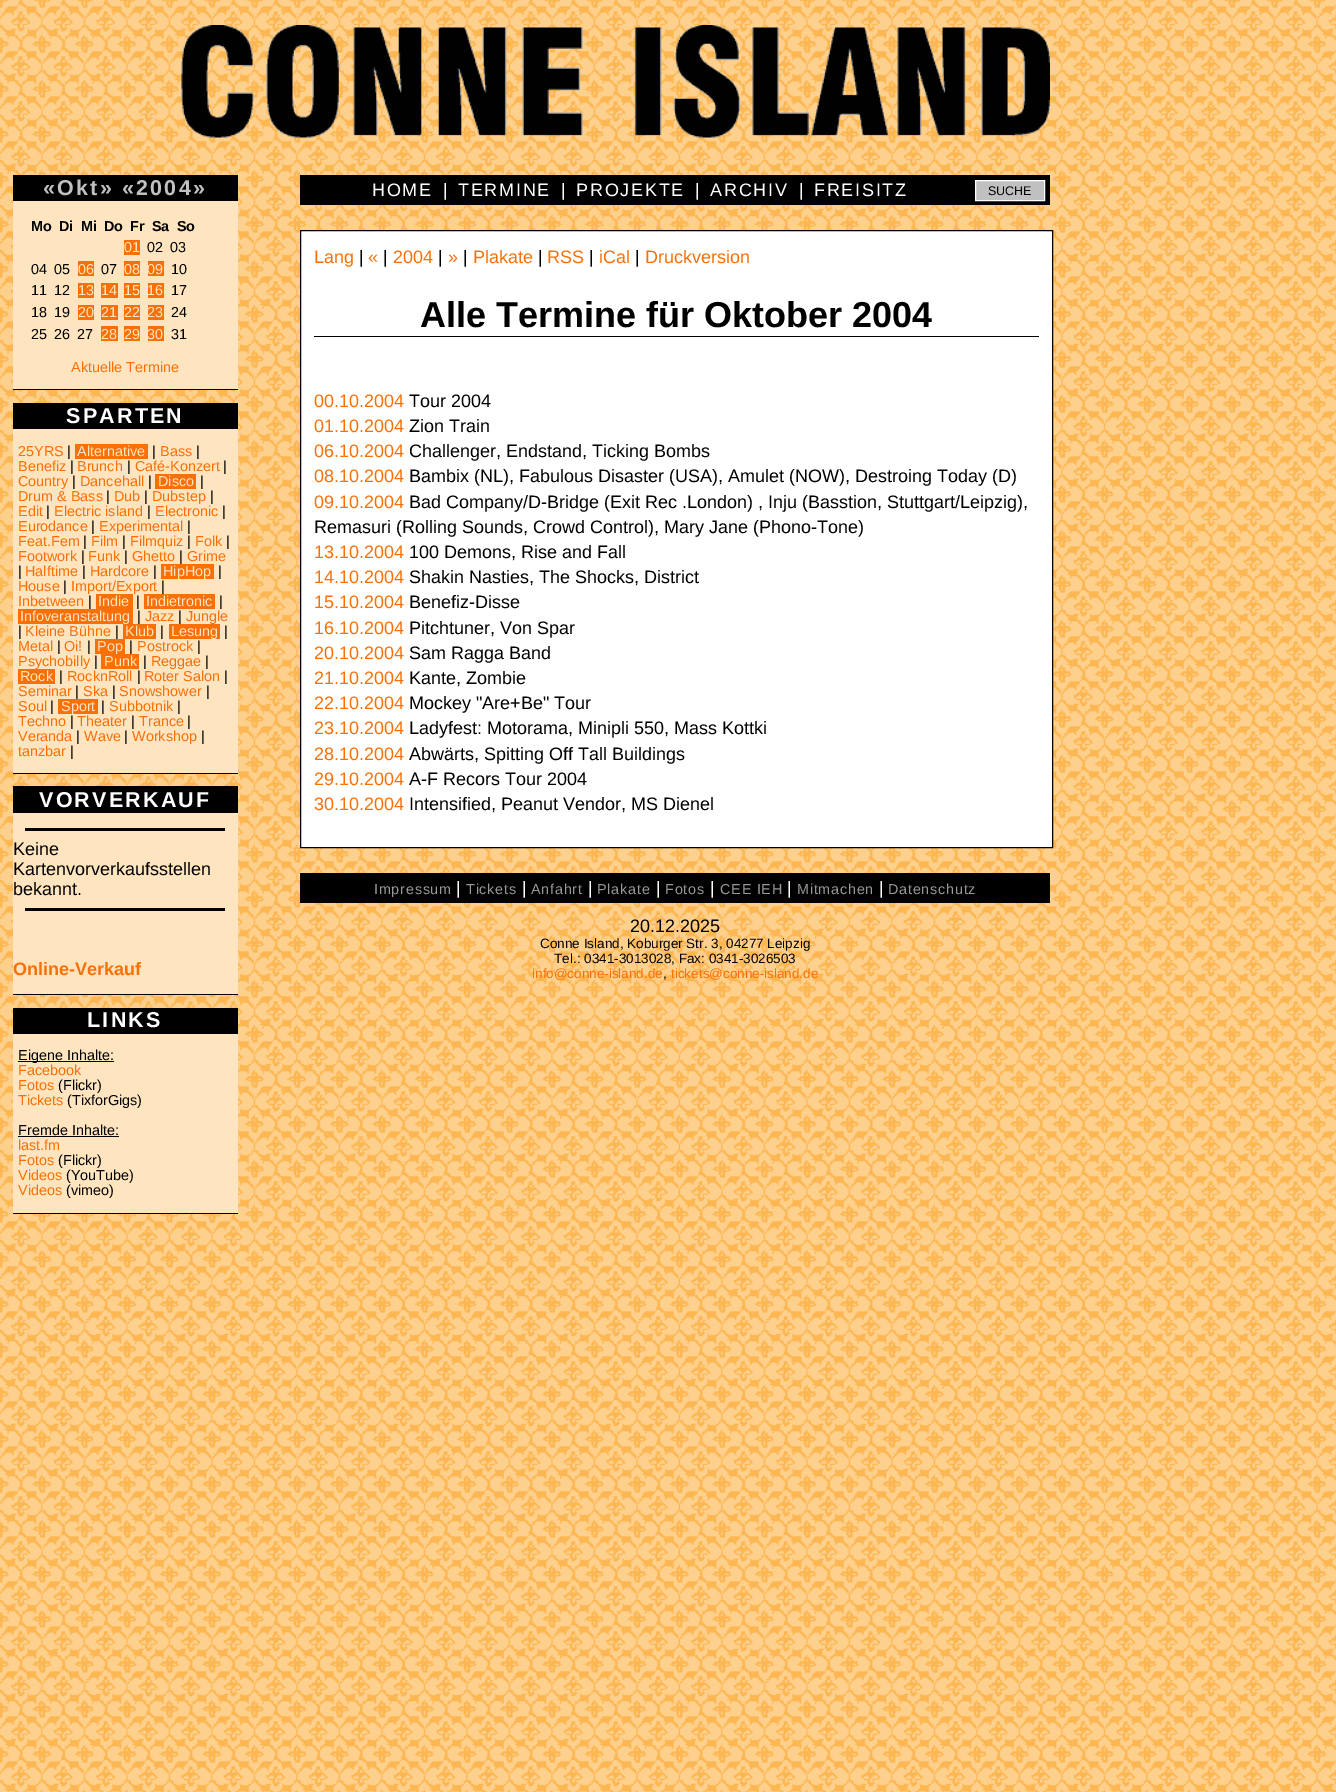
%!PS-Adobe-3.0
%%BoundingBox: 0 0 1336 1792
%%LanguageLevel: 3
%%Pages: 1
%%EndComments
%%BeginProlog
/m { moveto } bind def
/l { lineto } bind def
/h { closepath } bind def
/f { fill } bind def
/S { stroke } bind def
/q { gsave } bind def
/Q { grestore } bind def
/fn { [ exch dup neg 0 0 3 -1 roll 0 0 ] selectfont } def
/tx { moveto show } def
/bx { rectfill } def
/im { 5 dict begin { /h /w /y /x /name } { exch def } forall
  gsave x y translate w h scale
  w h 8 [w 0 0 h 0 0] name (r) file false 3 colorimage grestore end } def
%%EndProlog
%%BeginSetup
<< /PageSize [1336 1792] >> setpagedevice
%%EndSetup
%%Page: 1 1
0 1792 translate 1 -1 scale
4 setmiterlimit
1 setgray
0 0 1336 1792 bx
(image0.raw) 0 0 1336 1792 im
(image1.raw) 181 25 869 113 im
0.996 0.894 0.749 setrgbcolor
13 201 225 188 bx
0 setgray
13 389 225 1 bx
13 175 225 26 bx
/LiberationSans-Bold 21.5 fn
0.753 setgray
43 195 m 2.2 0 («Okt» «2004») ashow
/LiberationSans-Bold 14.4 fn
0 setgray
(Mo Di Mi Do Fr Sa So) 31 231 tx
0.98 0.439 0.027 setrgbcolor
124 240 16 15 bx
/LiberationSans-Regular 14.4 fn
0.996 0.894 0.749 setrgbcolor
(01) 124 252 tx
0 setgray
(02 03) 147 252 tx
(04 05) 31 274 tx
0.98 0.439 0.027 setrgbcolor
78 261 16 15 bx
0.996 0.894 0.749 setrgbcolor
(06) 78 274 tx
0 setgray
(07) 101 274 tx
0.98 0.439 0.027 setrgbcolor
124 261 16 15 bx
0.996 0.894 0.749 setrgbcolor
(08) 124 274 tx
0.98 0.439 0.027 setrgbcolor
148 261 16 15 bx
0.996 0.894 0.749 setrgbcolor
(09) 147 274 tx
0 setgray
(10) 171 274 tx
(11 12) 31 295 tx
0.98 0.439 0.027 setrgbcolor
78 283 16 15 bx
0.996 0.894 0.749 setrgbcolor
(13) 78 295 tx
0.98 0.439 0.027 setrgbcolor
101 283 17 15 bx
0.996 0.894 0.749 setrgbcolor
(14) 101 295 tx
0.98 0.439 0.027 setrgbcolor
124 283 16 15 bx
0.996 0.894 0.749 setrgbcolor
(15) 124 295 tx
0.98 0.439 0.027 setrgbcolor
148 283 16 15 bx
0.996 0.894 0.749 setrgbcolor
(16) 147 295 tx
0 setgray
(17) 171 295 tx
(18 19) 31 317 tx
0.98 0.439 0.027 setrgbcolor
78 305 16 15 bx
0.996 0.894 0.749 setrgbcolor
(20) 78 317 tx
0.98 0.439 0.027 setrgbcolor
101 305 17 15 bx
0.996 0.894 0.749 setrgbcolor
(21) 101 317 tx
0.98 0.439 0.027 setrgbcolor
124 305 16 15 bx
0.996 0.894 0.749 setrgbcolor
(22) 124 317 tx
0.98 0.439 0.027 setrgbcolor
148 305 16 15 bx
0.996 0.894 0.749 setrgbcolor
(23) 147 317 tx
0 setgray
(24) 171 317 tx
(25 26 27) 31 339 tx
0.98 0.439 0.027 setrgbcolor
101 326 17 15 bx
0.996 0.894 0.749 setrgbcolor
(28) 101 339 tx
0.98 0.439 0.027 setrgbcolor
124 326 16 15 bx
0.996 0.894 0.749 setrgbcolor
(29) 124 339 tx
0.98 0.439 0.027 setrgbcolor
148 326 16 15 bx
0.996 0.894 0.749 setrgbcolor
(30) 147 339 tx
0 setgray
(31) 171 339 tx
0.98 0.439 0.027 setrgbcolor
(Aktuelle Termine) 71 372 tx
0.996 0.894 0.749 setrgbcolor
13 429 225 344 bx
0 setgray
13 773 225 1 bx
13 403 225 26 bx
/LiberationSans-Bold 21.5 fn
1 setgray
66 423 m 2.2 0 (SPARTEN) ashow
/LiberationSans-Regular 14.4 fn
0.98 0.439 0.027 setrgbcolor
(25YRS) 18 456 tx
0 setgray
(|) 67 456 tx
0.98 0.439 0.027 setrgbcolor
75 444 73 15 bx
0.996 0.894 0.749 setrgbcolor
(Alternative) 77 456 tx
0 setgray
(|) 152 456 tx
0.98 0.439 0.027 setrgbcolor
(Bass) 160 456 tx
0 setgray
(|) 196 456 tx
0.98 0.439 0.027 setrgbcolor
(Benefiz) 18 471 tx
0 setgray
(|) 70 471 tx
0.98 0.439 0.027 setrgbcolor
(Brunch) 77 471 tx
0 setgray
(|) 127 471 tx
0.98 0.439 0.027 setrgbcolor
(Café-Konzert) 135 471 tx
0 setgray
(|) 223 471 tx
0.98 0.439 0.027 setrgbcolor
(Country) 18 486 tx
0 setgray
(|) 72 486 tx
0.98 0.439 0.027 setrgbcolor
(Dancehall) 80 486 tx
0 setgray
(|) 148 486 tx
0.98 0.439 0.027 setrgbcolor
155 474 41 15 bx
0.996 0.894 0.749 setrgbcolor
(Disco) 158 486 tx
0 setgray
(|) 200 486 tx
0.98 0.439 0.027 setrgbcolor
(Drum & Bass) 18 501 tx
0 setgray
(|) 106 501 tx
0.98 0.439 0.027 setrgbcolor
(Dub) 114 501 tx
0 setgray
(|) 144 501 tx
0.98 0.439 0.027 setrgbcolor
(Dubstep) 152 501 tx
0 setgray
(|) 210 501 tx
0.98 0.439 0.027 setrgbcolor
(Edit) 18 516 tx
0 setgray
(|) 46 516 tx
0.98 0.439 0.027 setrgbcolor
(Electric island) 54 516 tx
0 setgray
(|) 147 516 tx
0.98 0.439 0.027 setrgbcolor
(Electronic) 155 516 tx
0 setgray
(|) 222 516 tx
0.98 0.439 0.027 setrgbcolor
(Eurodance) 18 531 tx
0 setgray
(|) 91 531 tx
0.98 0.439 0.027 setrgbcolor
(Experimental) 99 531 tx
0 setgray
(|) 187 531 tx
0.98 0.439 0.027 setrgbcolor
(Feat.Fem) 18 546 tx
0 setgray
(|) 83 546 tx
0.98 0.439 0.027 setrgbcolor
(Film) 91 546 tx
0 setgray
(|) 122 546 tx
0.98 0.439 0.027 setrgbcolor
(Filmquiz) 130 546 tx
0 setgray
(|) 187 546 tx
0.98 0.439 0.027 setrgbcolor
(Folk) 195 546 tx
0 setgray
(|) 226 546 tx
0.98 0.439 0.027 setrgbcolor
(Footwork) 18 561 tx
0 setgray
(|) 81 561 tx
0.98 0.439 0.027 setrgbcolor
(Funk) 88 561 tx
0 setgray
(|) 124 561 tx
0.98 0.439 0.027 setrgbcolor
(Ghetto) 132 561 tx
0 setgray
(|) 179 561 tx
0.98 0.439 0.027 setrgbcolor
(Grime) 187 561 tx
0 setgray
(|) 18 576 tx
0.98 0.439 0.027 setrgbcolor
(Halftime) 25 576 tx
0 setgray
(|) 82 576 tx
0.98 0.439 0.027 setrgbcolor
(Hardcore) 90 576 tx
0 setgray
(|) 153 576 tx
0.98 0.439 0.027 setrgbcolor
161 564 53 15 bx
0.996 0.894 0.749 setrgbcolor
(HipHop) 163 576 tx
0 setgray
(|) 218 576 tx
0.98 0.439 0.027 setrgbcolor
(House) 18 591 tx
0 setgray
(|) 63 591 tx
0.98 0.439 0.027 setrgbcolor
(Import/Export) 71 591 tx
0 setgray
(|) 161 591 tx
0.98 0.439 0.027 setrgbcolor
(Inbetween) 18 606 tx
0 setgray
(|) 88 606 tx
0.98 0.439 0.027 setrgbcolor
96 594 37 15 bx
0.996 0.894 0.749 setrgbcolor
(Indie) 98 606 tx
0 setgray
(|) 136 606 tx
0.98 0.439 0.027 setrgbcolor
144 594 71 15 bx
0.996 0.894 0.749 setrgbcolor
(Indietronic) 146 606 tx
0 setgray
(|) 219 606 tx
0.98 0.439 0.027 setrgbcolor
18 609 115 15 bx
0.996 0.894 0.749 setrgbcolor
(Infoveranstaltung) 20 621 tx
0 setgray
(|) 137 621 tx
0.98 0.439 0.027 setrgbcolor
(Jazz) 145 621 tx
0 setgray
(|) 178 621 tx
0.98 0.439 0.027 setrgbcolor
(Jungle) 186 621 tx
0 setgray
(|) 18 636 tx
0.98 0.439 0.027 setrgbcolor
(Kleine Bühne) 25 636 tx
0 setgray
(|) 115 636 tx
0.98 0.439 0.027 setrgbcolor
123 624 33 15 bx
0.996 0.894 0.749 setrgbcolor
(Klub) 125 636 tx
0 setgray
(|) 160 636 tx
0.98 0.439 0.027 setrgbcolor
169 624 51 15 bx
0.996 0.894 0.749 setrgbcolor
(Lesung) 171 636 tx
0 setgray
(|) 224 636 tx
0.98 0.439 0.027 setrgbcolor
(Metal) 18 651 tx
0 setgray
(|) 57 651 tx
0.98 0.439 0.027 setrgbcolor
(Oi!) 64 651 tx
0 setgray
(|) 87 651 tx
0.98 0.439 0.027 setrgbcolor
95 639 30 15 bx
0.996 0.894 0.749 setrgbcolor
(Pop) 97 651 tx
0 setgray
(|) 129 651 tx
0.98 0.439 0.027 setrgbcolor
(Postrock) 137 651 tx
0 setgray
(|) 197 651 tx
0.98 0.439 0.027 setrgbcolor
(Psychobilly) 18 666 tx
0 setgray
(|) 94 666 tx
0.98 0.439 0.027 setrgbcolor
101 654 38 15 bx
0.996 0.894 0.749 setrgbcolor
(Punk) 104 666 tx
0 setgray
(|) 143 666 tx
0.98 0.439 0.027 setrgbcolor
(Reggae) 151 666 tx
0 setgray
(|) 205 666 tx
0.98 0.439 0.027 setrgbcolor
18 669 37 15 bx
0.996 0.894 0.749 setrgbcolor
(Rock) 20 681 tx
0 setgray
(|) 59 681 tx
0.98 0.439 0.027 setrgbcolor
(RocknRoll) 67 681 tx
0 setgray
(|) 137 681 tx
0.98 0.439 0.027 setrgbcolor
(Roter Salon) 144 681 tx
0 setgray
(|) 224 681 tx
0.98 0.439 0.027 setrgbcolor
(Seminar) 18 696 tx
0 setgray
(|) 75 696 tx
0.98 0.439 0.027 setrgbcolor
(Ska) 83 696 tx
0 setgray
(|) 112 696 tx
0.98 0.439 0.027 setrgbcolor
(Snowshower) 119 696 tx
0 setgray
(|) 206 696 tx
0.98 0.439 0.027 setrgbcolor
(Soul) 18 711 tx
0 setgray
(|) 50 711 tx
0.98 0.439 0.027 setrgbcolor
58 699 40 15 bx
0.996 0.894 0.749 setrgbcolor
(Sport) 61 711 tx
0 setgray
(|) 101 711 tx
0.98 0.439 0.027 setrgbcolor
(Subbotnik) 109 711 tx
0 setgray
(|) 177 711 tx
0.98 0.439 0.027 setrgbcolor
(Techno) 18 726 tx
0 setgray
(|) 70 726 tx
0.98 0.439 0.027 setrgbcolor
(Theater) 77 726 tx
0 setgray
(|) 131 726 tx
0.98 0.439 0.027 setrgbcolor
(Trance) 139 726 tx
0 setgray
(|) 187 726 tx
0.98 0.439 0.027 setrgbcolor
(Veranda) 18 741 tx
0 setgray
(|) 76 741 tx
0.98 0.439 0.027 setrgbcolor
(Wave) 84 741 tx
0 setgray
(|) 124 741 tx
0.98 0.439 0.027 setrgbcolor
(Workshop) 132 741 tx
0 setgray
(|) 201 741 tx
0.98 0.439 0.027 setrgbcolor
(tanzbar) 18 756 tx
0 setgray
(|) 70 756 tx
0.996 0.894 0.749 setrgbcolor
13 813 225 181 bx
0 setgray
13 994 225 1 bx
13 786 225 27 bx
/LiberationSans-Bold 21.5 fn
1 setgray
39 807 m 2.2 0 (VORVERKAUF) ashow
0 setgray
25 828 200 3 bx
/LiberationSans-Regular 18 fn
(Keine) 13 855 tx
(Kartenvorverkaufsstellen) 13 875 tx
(bekannt.) 13 895 tx
25 908 200 3 bx
/LiberationSans-Bold 18 fn
0.98 0.439 0.027 setrgbcolor
(Online-Verkauf) 13 975 tx
0.996 0.894 0.749 setrgbcolor
13 1034 225 179 bx
0 setgray
13 1213 225 1 bx
13 1008 225 26 bx
/LiberationSans-Bold 21.5 fn
1 setgray
87 1027 m 2.2 0 (LINKS) ashow
0 setgray
18 1061 96 1 bx
/LiberationSans-Regular 14.4 fn
(Eigene Inhalte:) 18 1060 tx
0.98 0.439 0.027 setrgbcolor
(Facebook) 18 1075 tx
(Fotos) 18 1090 tx
0 setgray
(\(Flickr\)) 58 1090 tx
0.98 0.439 0.027 setrgbcolor
(Tickets) 18 1105 tx
0 setgray
(\(TixforGigs\)) 67 1105 tx
(Fremde Inhalte:) 18 1135 tx
18 1136 101 1 bx
0.98 0.439 0.027 setrgbcolor
(last.fm) 18 1150 tx
(Fotos) 18 1165 tx
0 setgray
(\(Flickr\)) 58 1165 tx
0.98 0.439 0.027 setrgbcolor
(Videos) 18 1180 tx
0 setgray
(\(YouTube\)) 66 1180 tx
0.98 0.439 0.027 setrgbcolor
(Videos) 18 1195 tx
0 setgray
(\(vimeo\)) 66 1195 tx
300 175 750 30 bx
/LiberationSans-Regular 18 fn
1 setgray
372 196 m 1.75 0 (HOME) ashow
(|) 443 196 tx
458 196 m 1.75 0 (TERMINE) ashow
(|) 561 196 tx
576 196 m 1.75 0 (PROJEKTE) ashow
(|) 695 196 tx
710 196 m 1.75 0 (ARCHIV) ashow
(|) 799 196 tx
814 196 m 1.75 0 (FREISITZ) ashow
0.753 setgray
975.5 180.5 m 1044.5 180.5 l 1044.5 200.5 l 975.5 200.5 l h q f Q
1 setgray
S
/LiberationSans-Regular 12.5 fn
0 setgray
(SUCHE) 988 195 tx
1 setgray
300.5 230.5 m 1052.5 230.5 l 1052.5 847.5 l 300.5 847.5 l h q f Q
0 setgray
S
/LiberationSans-Regular 18 fn
0.98 0.439 0.027 setrgbcolor
(Lang) 314 263 tx
0 setgray
(|) 359 263 tx
0.98 0.439 0.027 setrgbcolor
(«) 368 263 tx
0 setgray
(|) 383 263 tx
0.98 0.439 0.027 setrgbcolor
(2004) 393 263 tx
0 setgray
(|) 438 263 tx
0.98 0.439 0.027 setrgbcolor
(») 448 263 tx
0 setgray
(|) 463 263 tx
0.98 0.439 0.027 setrgbcolor
(Plakate) 473 263 tx
0 setgray
(|) 538 263 tx
0.98 0.439 0.027 setrgbcolor
(RSS) 547 263 tx
0 setgray
(|) 589 263 tx
0.98 0.439 0.027 setrgbcolor
(iCal) 599 263 tx
0 setgray
(|) 635 263 tx
0.98 0.439 0.027 setrgbcolor
(Druckversion) 645 263 tx
0 setgray
314 336 725 1 bx
/LiberationSans-Bold 36 fn
(Alle Termine für Oktober 2004) 420 327 tx
/LiberationSans-Regular 18 fn
0.98 0.439 0.027 setrgbcolor
(00.10.2004) 314 407 tx
0 setgray
(Tour 2004) 409 407 tx
0.98 0.439 0.027 setrgbcolor
(01.10.2004) 314 432 tx
0 setgray
(Zion Train) 409 432 tx
0.98 0.439 0.027 setrgbcolor
(06.10.2004) 314 457 tx
0 setgray
(Challenger, Endstand, Ticking Bombs) 409 457 tx
0.98 0.439 0.027 setrgbcolor
(08.10.2004) 314 482 tx
0 setgray
(Bambix \(NL\), Fabulous Disaster \(USA\), Amulet \(NOW\), Destroing Today \(D\)) 409 482 tx
0.98 0.439 0.027 setrgbcolor
(09.10.2004) 314 508 tx
0 setgray
(Bad Company/D-Bridge \(Exit Rec .London\) , Inju \(Basstion, Stuttgart/Leipzig\),) 409 508 tx
(Remasuri \(Rolling Sounds, Crowd Control\), Mary Jane \(Phono-Tone\)) 314 533 tx
0.98 0.439 0.027 setrgbcolor
(13.10.2004) 314 558 tx
0 setgray
(100 Demons, Rise and Fall) 409 558 tx
0.98 0.439 0.027 setrgbcolor
(14.10.2004) 314 583 tx
0 setgray
(Shakin Nasties, The Shocks, District) 409 583 tx
0.98 0.439 0.027 setrgbcolor
(15.10.2004) 314 608 tx
0 setgray
(Benefiz-Disse) 409 608 tx
0.98 0.439 0.027 setrgbcolor
(16.10.2004) 314 634 tx
0 setgray
(Pitchtuner, Von Spar) 409 634 tx
0.98 0.439 0.027 setrgbcolor
(20.10.2004) 314 659 tx
0 setgray
(Sam Ragga Band) 409 659 tx
0.98 0.439 0.027 setrgbcolor
(21.10.2004) 314 684 tx
0 setgray
(Kante, Zombie) 409 684 tx
0.98 0.439 0.027 setrgbcolor
(22.10.2004) 314 709 tx
0 setgray
(Mockey "Are+Be" Tour) 409 709 tx
0.98 0.439 0.027 setrgbcolor
(23.10.2004) 314 734 tx
0 setgray
(Ladyfest: Motorama, Minipli 550, Mass Kottki) 409 734 tx
0.98 0.439 0.027 setrgbcolor
(28.10.2004) 314 760 tx
0 setgray
(Abwärts, Spitting Off Tall Buildings) 409 760 tx
0.98 0.439 0.027 setrgbcolor
(29.10.2004) 314 785 tx
0 setgray
(A-F Recors Tour 2004) 409 785 tx
0.98 0.439 0.027 setrgbcolor
(30.10.2004) 314 810 tx
0 setgray
(Intensified, Peanut Vendor, MS Dienel) 409 810 tx
300 873 750 30 bx
/LiberationSans-Regular 14.4 fn
0.6 setgray
374 894 m 0.75 0 (Impressum) ashow
/LiberationSans-Regular 18 fn
1 setgray
(|) 456 894 tx
/LiberationSans-Regular 14.4 fn
0.6 setgray
466 894 m 0.75 0 (Tickets) ashow
/LiberationSans-Regular 18 fn
1 setgray
(|) 522 894 tx
/LiberationSans-Regular 14.4 fn
0.6 setgray
531 894 m 0.75 0 (Anfahrt) ashow
/LiberationSans-Regular 18 fn
1 setgray
(|) 588 894 tx
/LiberationSans-Regular 14.4 fn
0.6 setgray
597 894 m 0.75 0 (Plakate) ashow
/LiberationSans-Regular 18 fn
1 setgray
(|) 656 894 tx
/LiberationSans-Regular 14.4 fn
0.6 setgray
665 894 m 0.75 0 (Fotos) ashow
/LiberationSans-Regular 18 fn
1 setgray
(|) 710 894 tx
/LiberationSans-Regular 14.4 fn
0.6 setgray
720 894 m 0.75 0 (CEE IEH) ashow
/LiberationSans-Regular 18 fn
1 setgray
(|) 787 894 tx
/LiberationSans-Regular 14.4 fn
0.6 setgray
797 894 m 0.75 0 (Mitmachen) ashow
/LiberationSans-Regular 18 fn
1 setgray
(|) 879 894 tx
/LiberationSans-Regular 14.4 fn
0.6 setgray
888 894 m 0.75 0 (Datenschutz) ashow
/LiberationSans-Regular 18 fn
0 setgray
(20.12.2025) 630 932 tx
/LiberationSans-Regular 13.5 fn
(Conne Island, Koburger Str. 3, 04277 Leipzig) 540 948 tx
(Tel.: 0341-3013028, Fax: 0341-3026503) 554 963 tx
0.98 0.439 0.027 setrgbcolor
(info@conne-island.de) 532 978 tx
0 setgray
(,) 663 978 tx
0.98 0.439 0.027 setrgbcolor
(tickets@conne-island.de) 671 978 tx
showpage
%%EOF
